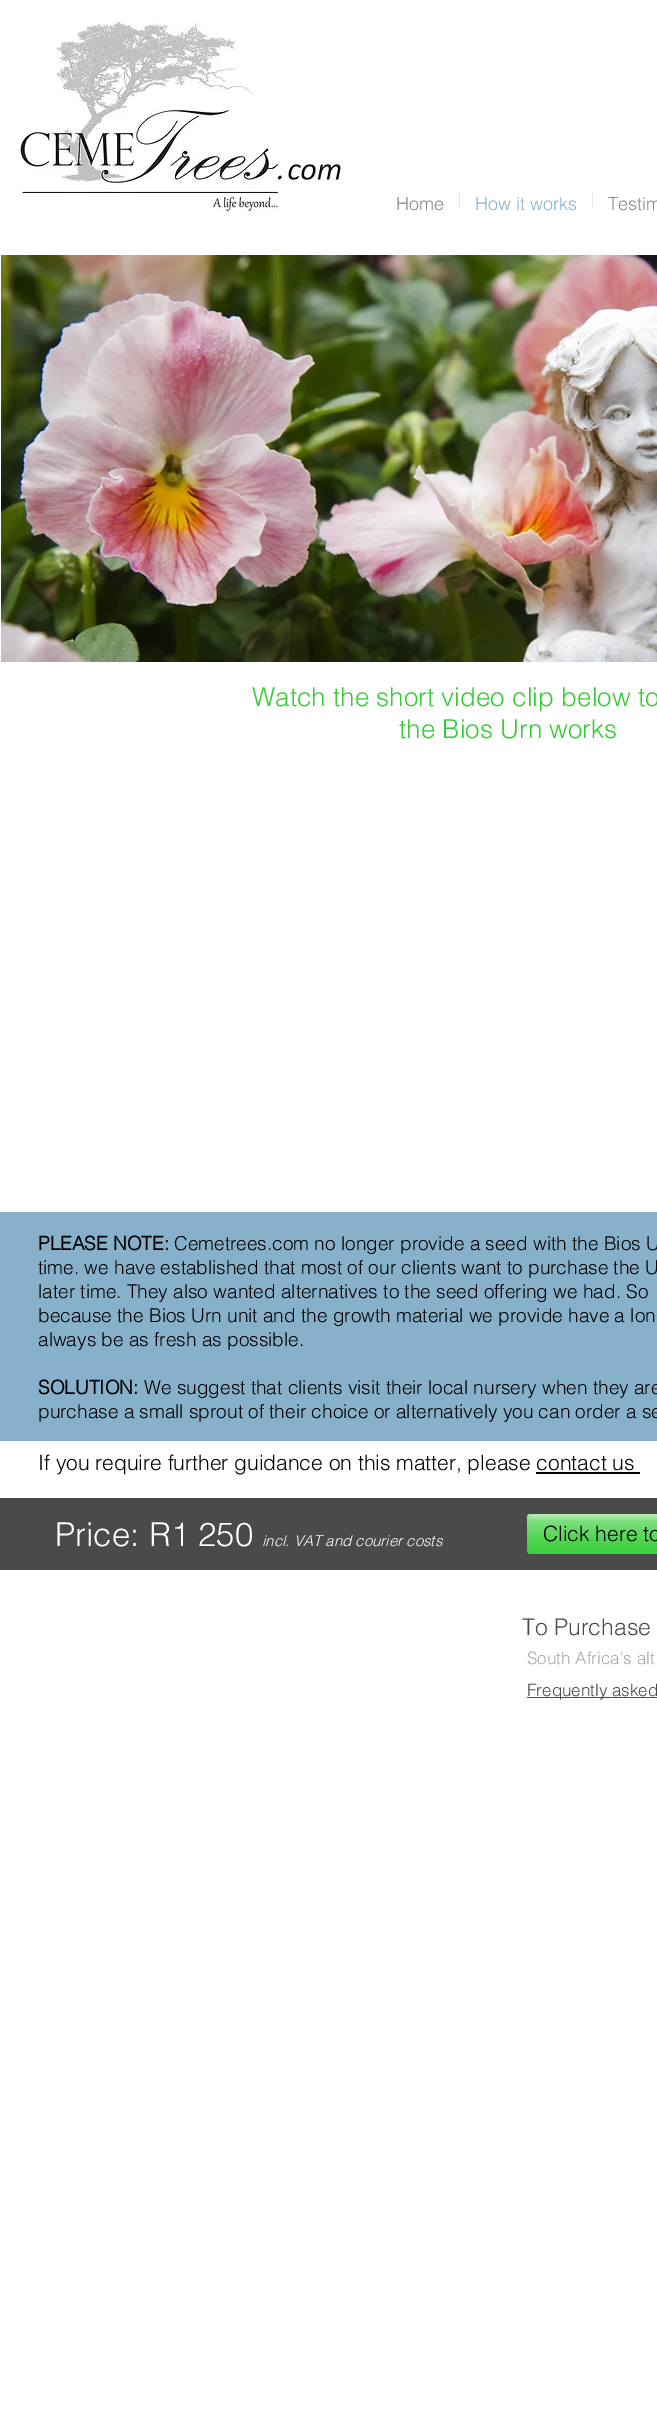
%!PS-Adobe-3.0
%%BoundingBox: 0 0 657 2409
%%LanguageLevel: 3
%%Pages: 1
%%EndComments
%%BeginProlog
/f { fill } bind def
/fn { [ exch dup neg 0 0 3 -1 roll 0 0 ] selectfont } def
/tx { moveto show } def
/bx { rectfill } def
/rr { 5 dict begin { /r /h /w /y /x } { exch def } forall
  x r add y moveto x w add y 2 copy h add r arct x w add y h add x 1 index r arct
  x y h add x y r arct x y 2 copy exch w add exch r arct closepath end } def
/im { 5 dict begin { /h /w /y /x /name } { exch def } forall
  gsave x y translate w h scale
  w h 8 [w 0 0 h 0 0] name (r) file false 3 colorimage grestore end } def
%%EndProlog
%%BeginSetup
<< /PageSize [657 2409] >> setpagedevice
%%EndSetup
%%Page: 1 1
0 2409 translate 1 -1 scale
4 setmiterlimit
1 setgray
0 0 657 2409 bx
(image0.raw) 17 22 324 192 im
/helvetica-Light 18 fn
0.525 setgray
(Home) 396 210 tx
0.914 setgray
459 191 1 17 bx
0.529 0.694 0.796 setrgbcolor
(How it works) 475 210 tx
0.914 setgray
592 191 1 17 bx
0.525 setgray
(Testim) 608 210 tx
(image1.raw) 1 255 656 407 im
/helvetica-Light 26 fn
0.2 0.8 0.2 setrgbcolor
(Watch the short video clip below to) 252 706 tx
(the Bios Urn works) 399 738 tx
0.529 0.694 0.796 setrgbcolor
0 1212 657 229 bx
/helvetica-Bold 19 fn
0 setgray
(PLEASE NOTE:) 38 1250 tx
/helvetica-Light 19 fn
(Cemetrees.com no longer provide a seed with the Bios U) 174 1250 tx
(time. we have established that most of our clients want to purchase the U) 38 1274 tx
(later time. They also wanted alternatives to the seed offering we had. So) 38 1298 tx
(because the Bios Urn unit and the growth material we provide have a lon) 38 1322 tx
(always be as fresh as possible.) 38 1346 tx
/helvetica-Bold 19 fn
(SOLUTION:) 38 1394 tx
/helvetica-Light 19 fn
(We suggest that clients visit their local nursery when they are) 144 1394 tx
(purchase a small sprout of their choice or alternatively you can order a se) 38 1418 tx
/helvetica-Light 21 fn
(If you require further guidance on this matter, please contact us) 38 1470 tx
536 1472 104 2 bx
0.29 setgray
0 1498 657 72 bx
/helvetica-Light 33 fn
1 setgray
(Price: R1 250) 55 1546 tx
/helvetica-LightItalic 15 fn
(incl. VAT and courier costs) 262 1546 tx
0.2 0.8 0.2 setrgbcolor
527 1514 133 40 3 rr f
(image2.raw) 527 1514 130 40 im
/helvetica-Light 21 fn
0 setgray
(Click here to) 543 1541 tx
/helvetica-Light 23 fn
0.29 setgray
(To Purchase) 522 1635 tx
/helvetica-Light 17 fn
0.667 0.659 0.659 setrgbcolor
(South Africa's alt) 527 1664 tx
0.29 setgray
527 1697 130 1 bx
(Frequently asked) 527 1696 tx
showpage
%%EOF
